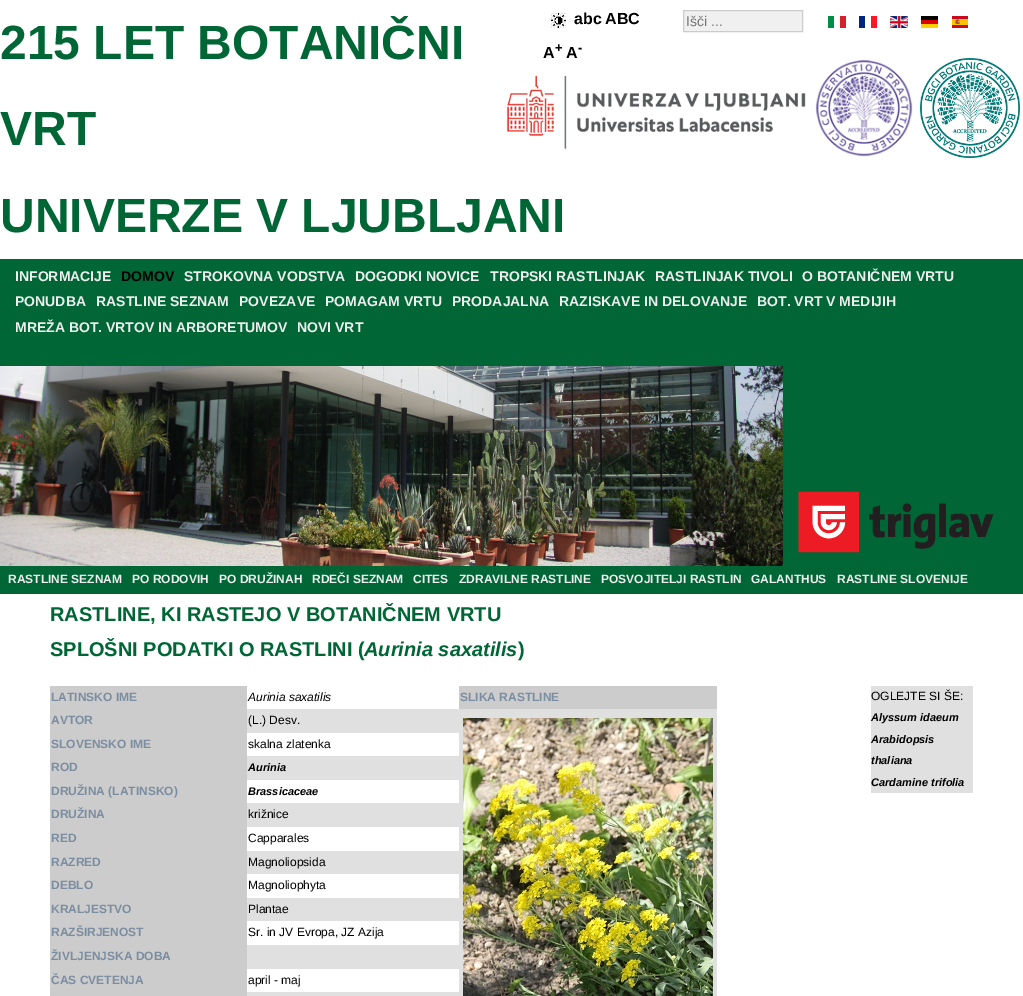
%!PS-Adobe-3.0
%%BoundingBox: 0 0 1023 996
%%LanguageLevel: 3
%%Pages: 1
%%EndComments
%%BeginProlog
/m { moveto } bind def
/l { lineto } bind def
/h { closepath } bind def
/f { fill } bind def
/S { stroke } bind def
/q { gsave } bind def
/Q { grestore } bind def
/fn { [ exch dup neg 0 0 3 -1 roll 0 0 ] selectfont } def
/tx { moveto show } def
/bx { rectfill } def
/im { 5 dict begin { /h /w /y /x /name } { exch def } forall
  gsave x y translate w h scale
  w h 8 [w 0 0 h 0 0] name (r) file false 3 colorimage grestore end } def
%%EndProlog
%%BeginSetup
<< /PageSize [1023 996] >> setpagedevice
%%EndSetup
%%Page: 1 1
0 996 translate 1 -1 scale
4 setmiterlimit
1 setgray
0 0 1023 996 bx
/LiberationSans-Bold 48 fn
0 0.4 0.208 setrgbcolor
(215 LET BOTANIČNI) 0 59 tx
(VRT) 0 145 tx
(UNIVERZE V LJUBLJANI) 0 232 tx
(image0.raw) 551 13 15 15 im
/LiberationSans-Bold 16 fn
0 setgray
(abc) 574 24 tx
(ABC) 605 24 tx
(A) 543 58 tx
/LiberationSans-Bold 13 fn
(+) 555 52 tx
/LiberationSans-Bold 16 fn
(A) 566 58 tx
/LiberationSans-Bold 13 fn
(-) 578 52 tx
0.941 setgray
683.5 10.5 m 802.5 10.5 l 802.5 31.5 l 683.5 31.5 l h q f Q
0.8 setgray
S
/LiberationSans-Regular 14 fn
0.459 setgray
(Išči ...) 686 26 tx
(image1.raw) 828 16 18 12 im
(image2.raw) 859 16 18 12 im
(image3.raw) 890 16 18 12 im
(image4.raw) 921 16 17 12 im
(image5.raw) 952 16 16 12 im
(image6.raw) 506 75 300 75 im
(image7.raw) 815 59 98 98 im
(image8.raw) 920 58 100 100 im
0 0.4 0.208 setrgbcolor
0 259 1023 335 bx
/LiberationSans-Bold 14 fn
0.933 setgray
(INFORMACIJE) 15 281 tx
0 setgray
(DOMOV) 121 281 tx
0.933 setgray
(STROKOVNA VODSTVA) 184 281 tx
(DOGODKI NOVICE) 355 281 tx
(TROPSKI RASTLINJAK) 490 281 tx
(RASTLINJAK TIVOLI) 655 281 tx
(O BOTANIČNEM VRTU) 802 281 tx
(PONUDBA) 15 306 tx
(RASTLINE SEZNAM) 96 306 tx
(POVEZAVE) 239 306 tx
(POMAGAM VRTU) 325 306 tx
(PRODAJALNA) 452 306 tx
(RAZISKAVE IN DELOVANJE) 559 306 tx
(BOT. VRT V MEDIJIH) 757 306 tx
(MREŽA BOT. VRTOV IN ARBORETUMOV) 15 332 tx
(NOVI VRT) 297 332 tx
(image9.raw) 0 366 783 200 im
(image10.raw) 798 491 196 62 im
/LiberationSans-Bold 12 fn
(RASTLINE SEZNAM) 8 583 tx
(PO RODOVIH) 132 583 tx
(PO DRUŽINAH) 219 583 tx
(RDEČI SEZNAM) 312 583 tx
(CITES) 413 583 tx
(ZDRAVILNE RASTLINE) 459 583 tx
(POSVOJITELJI RASTLIN) 601 583 tx
(GALANTHUS) 751 583 tx
(RASTLINE SLOVENIJE) 837 583 tx
/LiberationSans-Bold 20 fn
0 0.4 0.208 setrgbcolor
(RASTLINE, KI RASTEJO V BOTANIČNEM VRTU) 50 621 tx
(SPLOŠNI PODATKI O RASTLINI \() 50 656 tx
/LiberationSans-BoldItalic 20 fn
(Aurinia saxatilis) 364 656 tx
/LiberationSans-Bold 20 fn
(\)) 518 656 tx
0.8 setgray
50 686 197 310 bx
/LiberationSans-Bold 12 fn
0.482 0.553 0.631 setrgbcolor
(LATINSKO IME) 51 701 tx
/LiberationSans-Italic 12 fn
0 setgray
(Aurinia saxatilis) 248 701 tx
/LiberationSans-Bold 12 fn
0.482 0.553 0.631 setrgbcolor
(AVTOR) 51 724 tx
0.878 setgray
247 709 212 24 bx
/LiberationSans-Regular 12 fn
0 setgray
(\(L.\) Desv.) 248 724 tx
/LiberationSans-Bold 12 fn
0.482 0.553 0.631 setrgbcolor
(SLOVENSKO IME) 51 748 tx
/LiberationSans-Regular 12 fn
0 setgray
(skalna zlatenka) 248 748 tx
/LiberationSans-Bold 12 fn
0.482 0.553 0.631 setrgbcolor
(ROD) 51 771 tx
0.878 setgray
247 756 212 24 bx
/LiberationSans-BoldItalic 11 fn
0 setgray
(Aurinia) 248 771 tx
/LiberationSans-Bold 12 fn
0.482 0.553 0.631 setrgbcolor
(DRUŽINA \(LATINSKO\)) 51 795 tx
/LiberationSans-BoldItalic 11 fn
0 setgray
(Brassicaceae) 248 795 tx
/LiberationSans-Bold 12 fn
0.482 0.553 0.631 setrgbcolor
(DRUŽINA) 51 818 tx
0.878 setgray
247 803 212 24 bx
/LiberationSans-Regular 12 fn
0 setgray
(križnice) 248 818 tx
/LiberationSans-Bold 12 fn
0.482 0.553 0.631 setrgbcolor
(RED) 51 842 tx
/LiberationSans-Regular 12 fn
0 setgray
(Capparales) 248 842 tx
/LiberationSans-Bold 12 fn
0.482 0.553 0.631 setrgbcolor
(RAZRED) 51 866 tx
0.878 setgray
247 851 212 23 bx
/LiberationSans-Regular 12 fn
0 setgray
(Magnoliopsida) 248 866 tx
/LiberationSans-Bold 12 fn
0.482 0.553 0.631 setrgbcolor
(DEBLO) 51 889 tx
/LiberationSans-Regular 12 fn
0 setgray
(Magnoliophyta) 248 889 tx
/LiberationSans-Bold 12 fn
0.482 0.553 0.631 setrgbcolor
(KRALJESTVO) 51 913 tx
0.878 setgray
247 898 212 23 bx
/LiberationSans-Regular 12 fn
0 setgray
(Plantae) 248 913 tx
/LiberationSans-Bold 12 fn
0.482 0.553 0.631 setrgbcolor
(RAZŠIRJENOST) 51 936 tx
/LiberationSans-Regular 12 fn
0 setgray
(Sr. in JV Evropa, JZ Azija) 248 936 tx
/LiberationSans-Bold 12 fn
0.482 0.553 0.631 setrgbcolor
(ŽIVLJENJSKA DOBA) 51 960 tx
0.878 setgray
247 945 212 24 bx
0.482 0.553 0.631 setrgbcolor
(ČAS CVETENJA) 51 984 tx
/LiberationSans-Regular 12 fn
0 setgray
(april - maj) 248 984 tx
0.878 setgray
247 992 212 4 bx
0.8 setgray
459 686 258 23 bx
/LiberationSans-Bold 12 fn
0.482 0.553 0.631 setrgbcolor
(SLIKA RASTLINE) 460 701 tx
0.878 setgray
459 709 258 287 bx
(image11.raw) 463 718 250 278 im
871 686 102 107 bx
/LiberationSans-Regular 12 fn
0 setgray
(OGLEJTE SI ŠE:) 871 700 tx
/LiberationSans-BoldItalic 11 fn
(Alyssum idaeum) 871 721 tx
(Arabidopsis) 871 743 tx
(thaliana) 871 764 tx
(Cardamine trifolia) 871 786 tx
showpage
%%EOF
